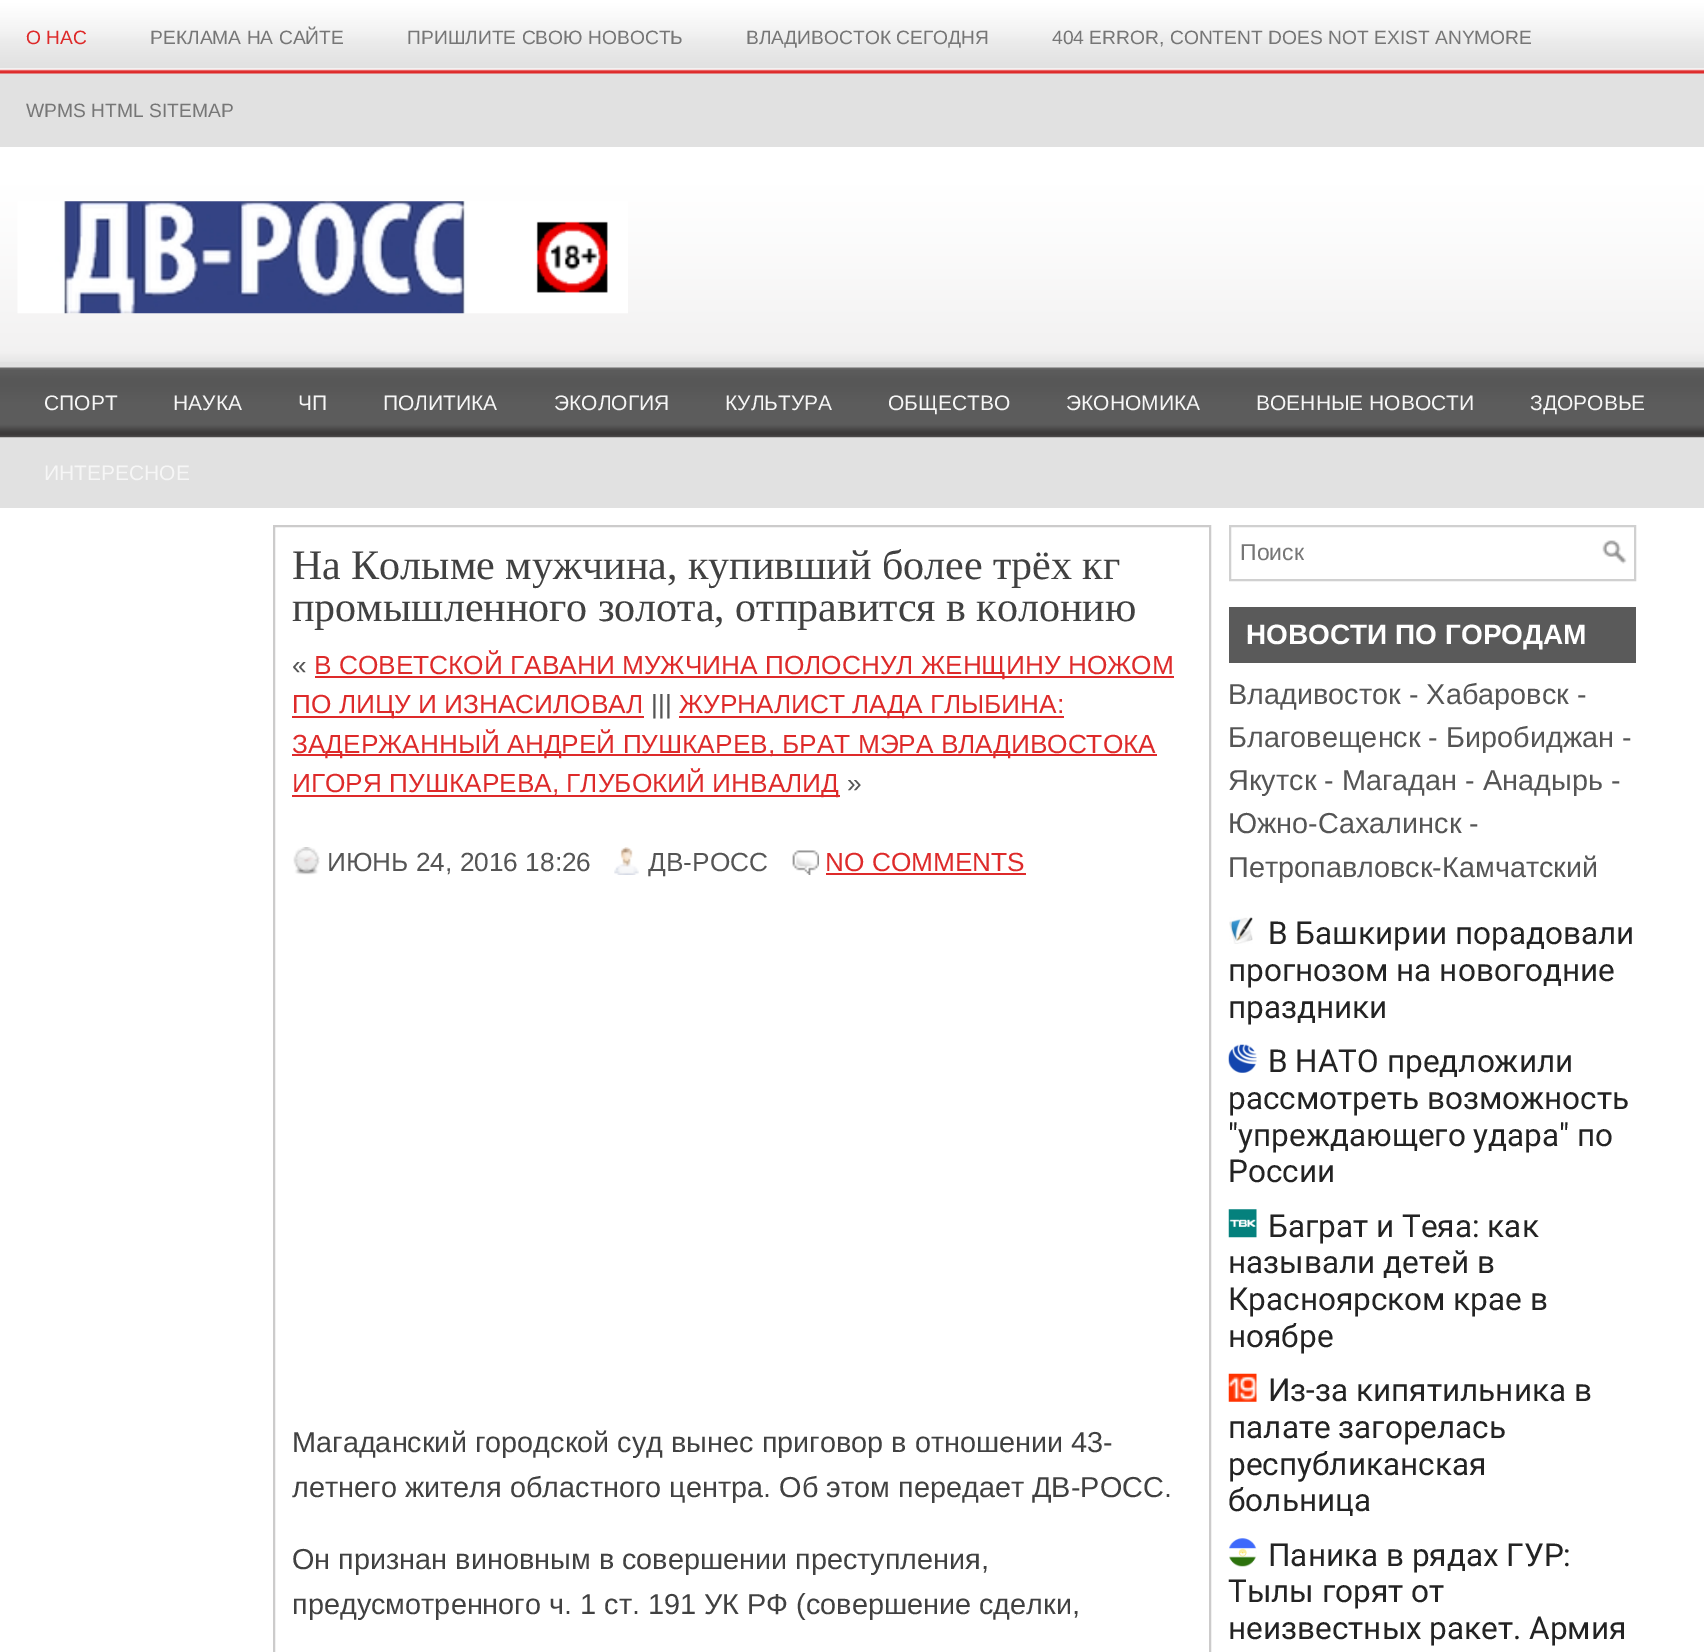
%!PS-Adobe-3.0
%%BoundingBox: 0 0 1704 1652
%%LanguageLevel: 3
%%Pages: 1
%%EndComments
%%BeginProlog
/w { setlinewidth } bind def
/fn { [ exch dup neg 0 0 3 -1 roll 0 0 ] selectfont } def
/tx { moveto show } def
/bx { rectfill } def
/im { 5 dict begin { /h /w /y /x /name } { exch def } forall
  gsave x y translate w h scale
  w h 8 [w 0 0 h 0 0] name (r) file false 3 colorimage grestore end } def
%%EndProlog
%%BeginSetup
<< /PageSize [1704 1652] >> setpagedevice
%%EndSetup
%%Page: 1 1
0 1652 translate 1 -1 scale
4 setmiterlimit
0.882 setgray
0 0 1704 1652 bx
(image0.raw) 0 0 1704 74 im
/LiberationSans-Regular 19.25 fn
0.871 0.165 0.165 setrgbcolor
(О НАС) 26 44 tx
0.463 setgray
(РЕКЛАМА НА САЙТЕ) 150 44 tx
(ПРИШЛИТЕ СВОЮ НОВОСТЬ) 407 44 tx
(ВЛАДИВОСТОК СЕГОДНЯ) 746 44 tx
(404 ERROR, CONTENT DOES NOT EXIST ANYMORE) 1052 44 tx
(WPMS HTML SITEMAP) 26 117 tx
(image1.raw) 0 147 1704 215 im
(image2.raw) 17 201 611 113 im
(image3.raw) 0 367 1704 71 im
/LiberationSans-Regular 21 fn
0.965 setgray
(СПОРТ) 44 410 tx
(НАУКА) 173 410 tx
(ЧП) 298 410 tx
(ПОЛИТИКА) 383 410 tx
(ЭКОЛОГИЯ) 554 410 tx
(КУЛЬТУРА) 725 410 tx
(ОБЩЕСТВО) 888 410 tx
(ЭКОНОМИКА) 1066 410 tx
(ВОЕННЫЕ НОВОСТИ) 1256 410 tx
(ЗДОРОВЬЕ) 1530 410 tx
(ИНТЕРЕСНОЕ) 44 480 tx
1 setgray
0 508 1704 1144 bx
0.8 0.796 0.796 setrgbcolor
2 w
274 526 936 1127 rectstroke
/LiberationSerif-Regular 42 fn
0.255 setgray
(На Колыме мужчина, купивший более трёх кг) 292 579 tx
(промышленного золота, отправится в колонию) 292 621 tx
/LiberationSans-Regular 26.25 fn
0.333 setgray
(«) 292 674 tx
0.871 0.165 0.165 setrgbcolor
315 676 859 2 bx
(В СОВЕТСКОЙ ГАВАНИ МУЖЧИНА ПОЛОСНУЛ ЖЕНЩИНУ НОЖОМ) 314 674 tx
292 716 352 2 bx
(ПО ЛИЦУ И ИЗНАСИЛОВАЛ) 292 713 tx
0.333 setgray
(|||) 651 713 tx
0.871 0.165 0.165 setrgbcolor
679 716 385 2 bx
(ЖУРНАЛИСТ ЛАДА ГЛЫБИНА:) 679 713 tx
292 754 865 2 bx
(ЗАДЕРЖАННЫЙ АНДРЕЙ ПУШКАРЕВ, БРАТ МЭРА ВЛАДИВОСТОКА) 292 753 tx
292 795 548 2 bx
(ИГОРЯ ПУШКАРЕВА, ГЛУБОКИЙ ИНВАЛИД) 292 792 tx
0.333 setgray
(») 847 792 tx
(image4.raw) 293 847 27 28 im
(ИЮНЬ 24, 2016 18:26) 327 871 tx
(image5.raw) 614 847 25 28 im
(ДВ-РОСС) 648 871 tx
(image6.raw) 792 850 27 25 im
0.871 0.165 0.165 setrgbcolor
(NO COMMENTS) 825 871 tx
826 873 200 2 bx
/LiberationSans-Regular 28.85 fn
0.255 setgray
(Магаданский городской суд вынес приговор в отношении 43-) 292 1452 tx
(летнего жителя областного центра. Об этом передает ДВ-РОСС.) 292 1497 tx
(Он признан виновным в совершении преступления,) 292 1569 tx
(предусмотренного ч. 1 ст. 191 УК РФ \(совершение сделки,) 292 1614 tx
0.816 setgray
1230 526 405 54 rectstroke
/LiberationSans-Regular 23 fn
0.463 setgray
(Поиск) 1240 560 tx
(image7.raw) 1602 540 25 24 im
0.353 setgray
1229 607 407 56 bx
/LiberationSans-Bold 28 fn
1 setgray
(НОВОСТИ ПО ГОРОДАМ) 1246 644 tx
/LiberationSans-Regular 28.85 fn
0.333 setgray
(Владивосток - Хабаровск -) 1228 704 tx
(Благовещенск - Биробиджан -) 1228 747 tx
(Якутск - Магадан - Анадырь -) 1228 790 tx
(Южно-Сахалинск -) 1228 833 tx
(Петропавловск-Камчатский) 1228 877 tx
(image8.raw) 1229 917 24 27 im
/Roboto-Regular 31.5 fn
0.137 setgray
(В Башкирии порадовали) 1268 944 tx
(прогнозом на новогодние) 1228 981 tx
(праздники) 1228 1018 tx
(image9.raw) 1228 1044 29 29 im
(В НАТО предложили) 1268 1072 tx
(рассмотреть возможность) 1228 1109 tx
("упреждающего удара" по) 1228 1146 tx
(России) 1228 1182 tx
(image10.raw) 1228 1209 29 29 im
(Баграт и Теяа: как) 1268 1237 tx
(называли детей в) 1228 1273 tx
(Красноярском крае в) 1228 1310 tx
(ноябре) 1228 1347 tx
(image11.raw) 1228 1373 29 29 im
(Из-за кипятильника в) 1268 1401 tx
(палате загорелась) 1228 1438 tx
(республиканская) 1228 1475 tx
(больница) 1228 1511 tx
(image12.raw) 1229 1538 28 29 im
(Паника в рядах ГУР:) 1268 1566 tx
(Тылы горят от) 1228 1602 tx
(неизвестных ракет. Армия) 1228 1639 tx
showpage
%%EOF
